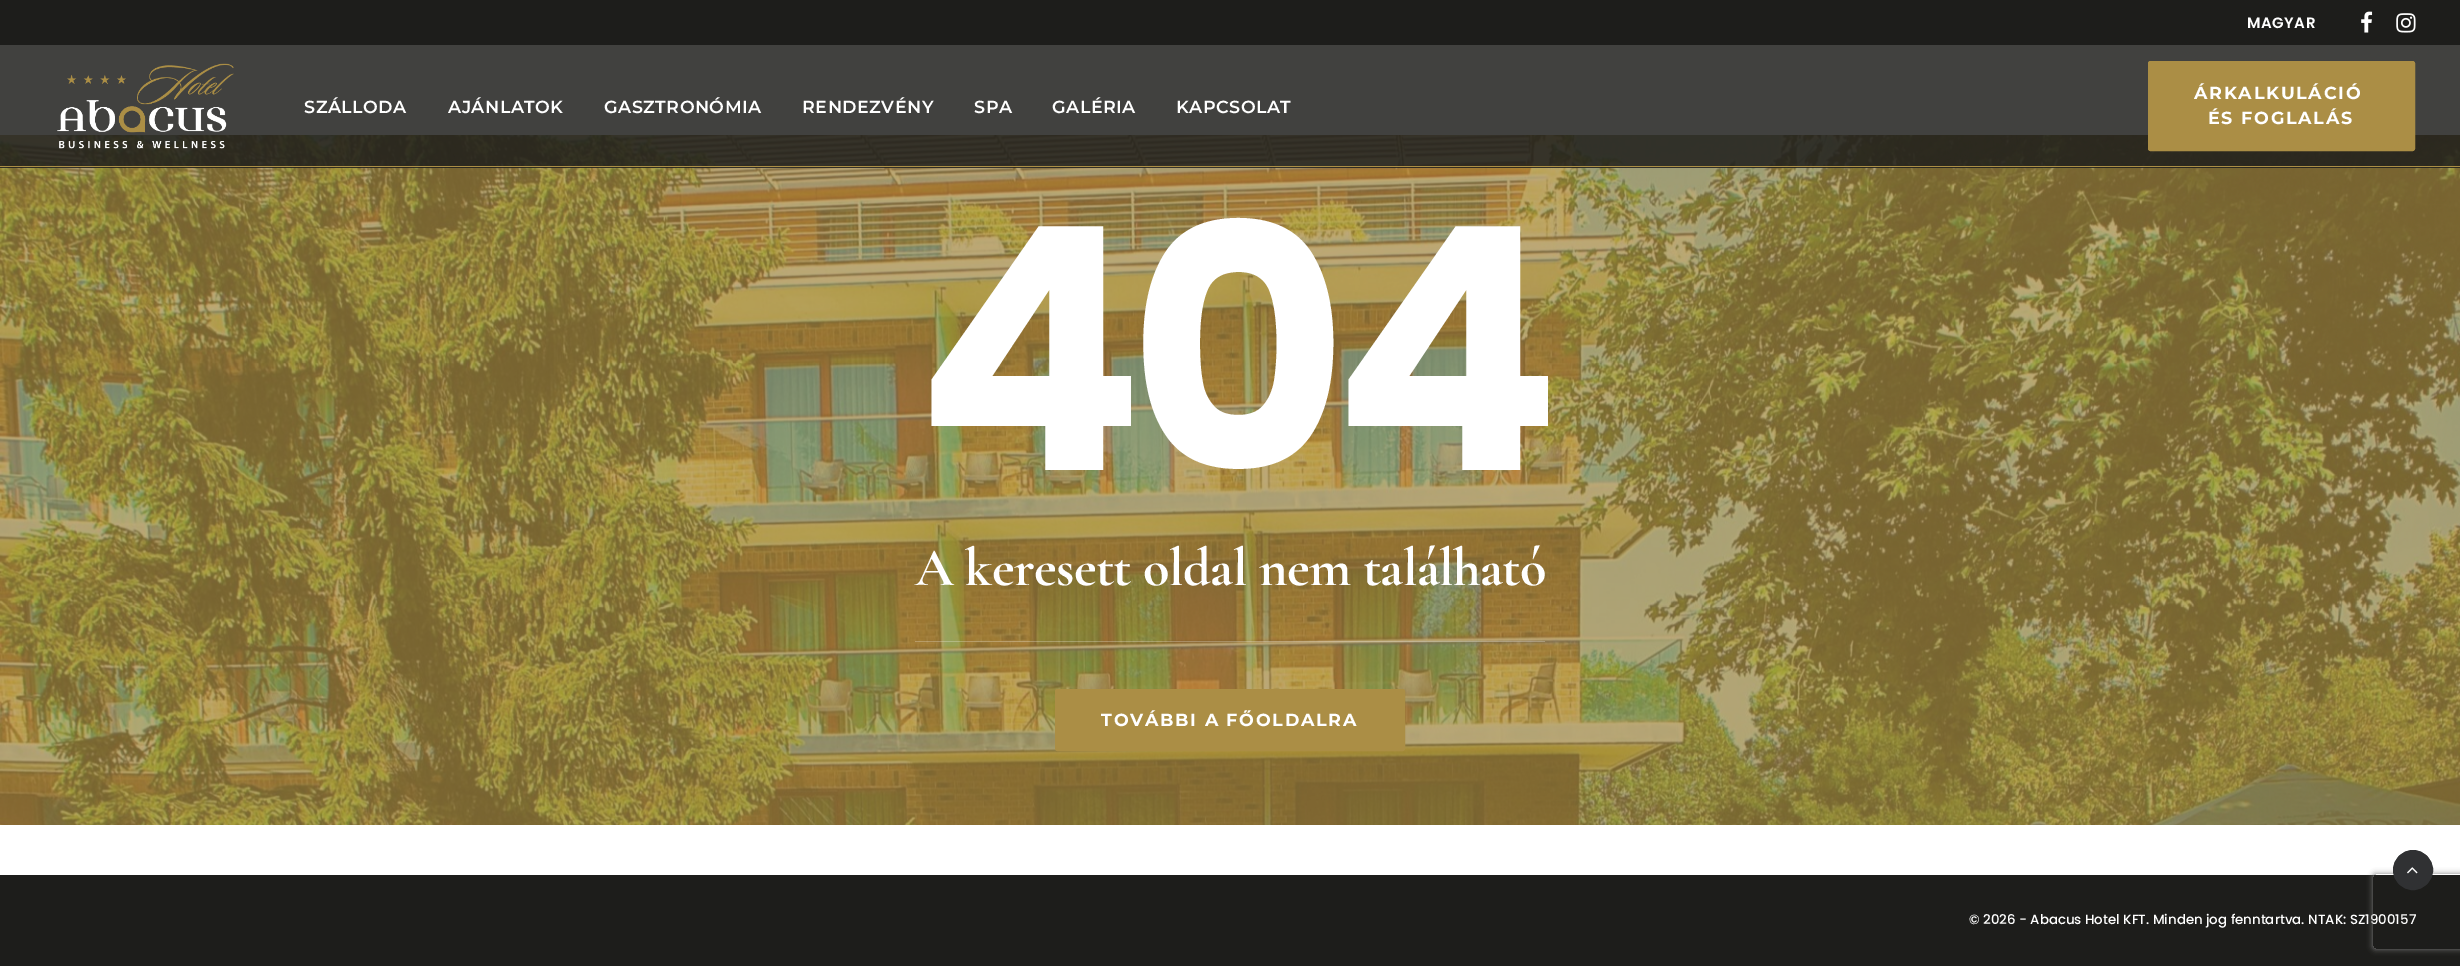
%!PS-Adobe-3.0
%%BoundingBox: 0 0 2460 966
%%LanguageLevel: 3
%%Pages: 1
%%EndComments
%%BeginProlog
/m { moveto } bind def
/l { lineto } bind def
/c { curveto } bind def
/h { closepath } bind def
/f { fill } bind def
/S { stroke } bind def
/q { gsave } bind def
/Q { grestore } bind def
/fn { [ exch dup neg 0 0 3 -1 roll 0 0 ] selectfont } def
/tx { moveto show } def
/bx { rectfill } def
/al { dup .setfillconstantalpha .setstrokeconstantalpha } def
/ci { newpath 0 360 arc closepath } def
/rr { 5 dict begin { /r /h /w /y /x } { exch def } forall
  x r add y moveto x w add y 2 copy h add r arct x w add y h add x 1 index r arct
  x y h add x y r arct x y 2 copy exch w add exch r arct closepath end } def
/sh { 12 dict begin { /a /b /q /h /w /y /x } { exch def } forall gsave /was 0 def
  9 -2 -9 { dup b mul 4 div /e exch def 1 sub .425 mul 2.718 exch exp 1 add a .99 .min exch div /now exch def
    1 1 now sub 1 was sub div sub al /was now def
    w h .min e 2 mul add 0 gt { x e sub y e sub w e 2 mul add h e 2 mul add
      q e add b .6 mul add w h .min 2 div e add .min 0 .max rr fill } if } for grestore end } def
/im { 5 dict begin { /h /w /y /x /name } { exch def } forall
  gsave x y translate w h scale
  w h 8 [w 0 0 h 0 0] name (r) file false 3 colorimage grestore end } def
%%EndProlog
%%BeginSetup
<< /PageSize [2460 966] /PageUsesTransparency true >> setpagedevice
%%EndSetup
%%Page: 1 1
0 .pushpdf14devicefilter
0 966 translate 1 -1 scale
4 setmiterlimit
1 setgray
0 0 2460 966 bx
0.114 0.114 0.106 setrgbcolor
0 0 2460 45 bx
/Poppins-SemiBold 15 fn
1 setgray
2247 28 m 0.5 0 (MAGYAR) ashow
(image0.raw) 2361 11 12 22 im
(image1.raw) 2396 13 20 20 im
(image3.raw) 0 135 2460 690 im
0.6 al
0.114 0.114 0.106 setrgbcolor
0 45 2460 123 bx
0 45 2460 123 bx
1 al
0.671 0.557 0.271 setrgbcolor
0 166 2460 1 bx
(image2.raw) 57 63 177 86 im
/Montserrat-SemiBold 17.5 fn
1 setgray
304 113 m 0.5 0 (SZÁLLODA) ashow
448 113 m 0.5 0 (AJÁNLATOK) ashow
604 113 m 0.5 0 (GASZTRONÓMIA) ashow
802 113 m 0.5 0 (RENDEZVÉNY) ashow
974 113 m 0.5 0 (SPA) ashow
1052 113 m 0.5 0 (GALÉRIA) ashow
1176 113 m 0.5 0 (KAPCSOLAT) ashow
0.671 0.557 0.271 setrgbcolor
2148.5 61.5 266 89 2 rr q f Q
S
/Montserrat-Bold 17.5 fn
1 setgray
2194 99 m 1.75 0 (ÁRKALKULÁCIÓ) ashow
2208 124 m 1.75 0 (ÉS FOGLALÁS) ashow
/Poppins-Bold 339 fn
915 470 m -17 0 (404) ashow
/CormorantGaramond-Bold 54.4 fn
915 585 m -0.6 0 (A keresett oldal nem található) ashow
0.25 al
915 641 630 1 bx
1 al
0.671 0.557 0.271 setrgbcolor
1055.5 689.5 349 61 2 rr q f Q
S
/Montserrat-Bold 17.5 fn
1 setgray
1101 726 m 1.75 0 (TOVÁBBI A FŐOLDALRA) ashow
0.114 0.114 0.106 setrgbcolor
0 875 2460 91 bx
/Poppins-Medium 13.35 fn
1 setgray
(© 2026 - Abacus Hotel KFT. Minden jog fenntartva. NTAK: SZ1900157) 1969 924 tx
q
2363 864 m 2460 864 l 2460 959 l 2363 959 l h 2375.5 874 m 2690.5 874 l 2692 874 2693 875 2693 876.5 c 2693 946.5 l 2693 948 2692 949 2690.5 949 c 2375.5 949 l 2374 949 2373 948 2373 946.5 c 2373 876.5 l 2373 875 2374 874 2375.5 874 c h eoclip newpath
0.502 setgray
2373 874 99 75 2.5 3 1 sh
Q
0.188 0.192 0.2 setrgbcolor
2413 870 19.5 ci q f Q
S
(image4.raw) 2407 867 11 7 im
.poppdf14devicefilter showpage
%%EOF
